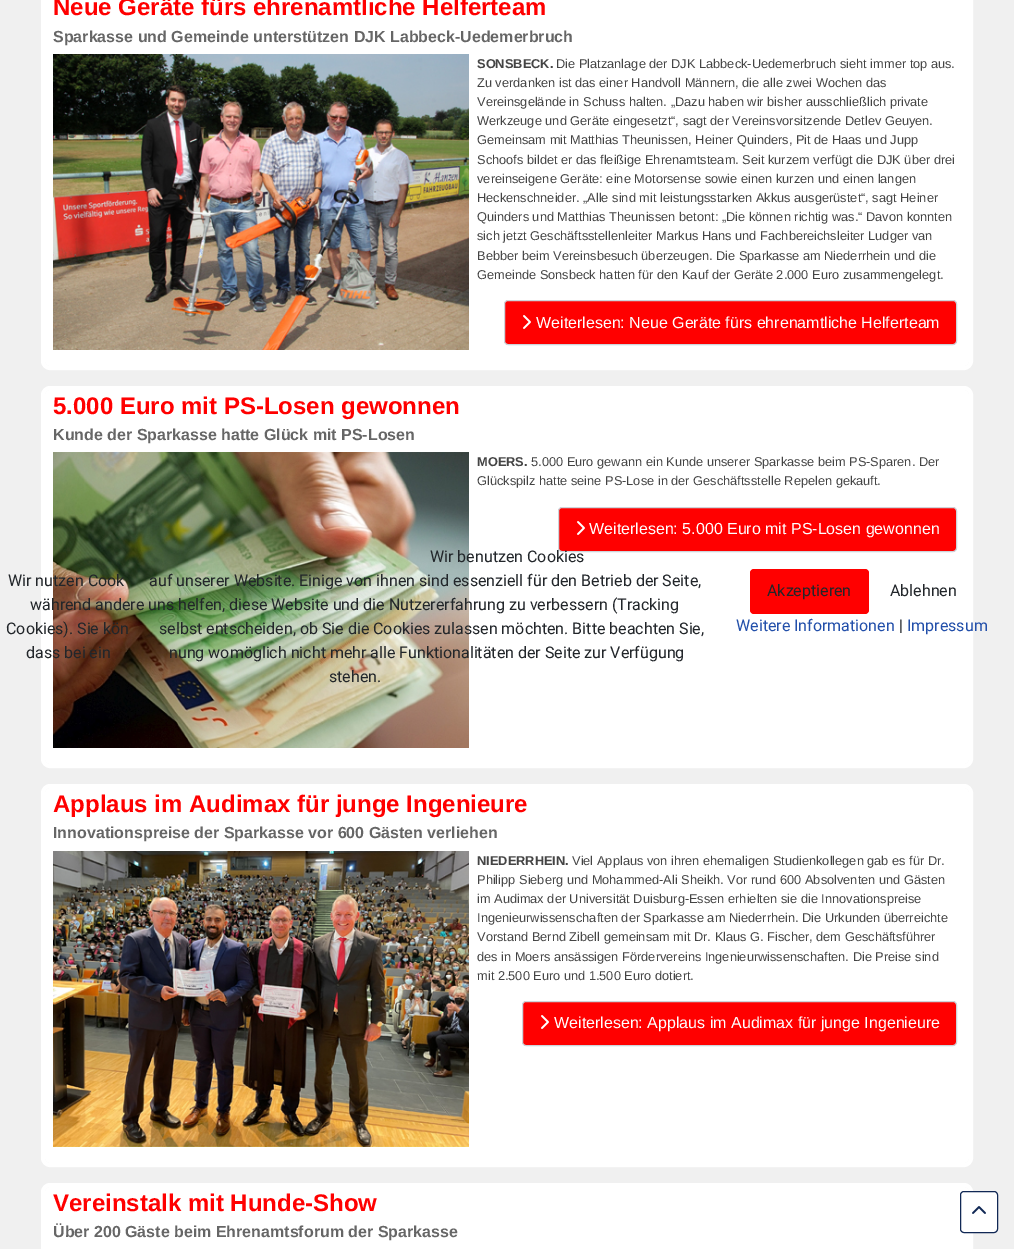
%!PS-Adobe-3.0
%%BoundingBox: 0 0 1014 1249
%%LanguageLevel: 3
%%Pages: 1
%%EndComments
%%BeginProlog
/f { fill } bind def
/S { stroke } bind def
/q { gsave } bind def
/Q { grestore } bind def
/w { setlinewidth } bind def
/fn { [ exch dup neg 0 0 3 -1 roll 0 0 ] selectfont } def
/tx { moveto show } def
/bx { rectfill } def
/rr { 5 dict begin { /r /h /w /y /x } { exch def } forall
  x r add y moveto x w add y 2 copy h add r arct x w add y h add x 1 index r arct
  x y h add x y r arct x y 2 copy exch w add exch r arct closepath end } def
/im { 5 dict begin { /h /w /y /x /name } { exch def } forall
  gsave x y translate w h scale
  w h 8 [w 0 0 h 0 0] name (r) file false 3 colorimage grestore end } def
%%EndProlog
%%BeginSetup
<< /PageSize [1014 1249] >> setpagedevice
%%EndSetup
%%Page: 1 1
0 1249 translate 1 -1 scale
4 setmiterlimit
0.941 setgray
0 0 1014 1249 bx
1 setgray
4 w
43 -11 928 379 7 rr S
45 -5 924 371 5 rr f
/LiberationSans-Bold 24 fn
1 0 0 setrgbcolor
(Neue Geräte fürs ehrenamtliche Helferteam) 53 15 tx
/LiberationSans-Bold 16 fn
0.4 setgray
(Sparkasse und Gemeinde unterstützen DJK Labbeck-Uedemerbruch) 53 42 tx
(image0.raw) 53 54 416 296 im
/LiberationSans-Bold 12.8 fn
0.267 setgray
(SONSBECK.) 477 68 tx
/LiberationSans-Regular 12.8 fn
(Die Platzanlage der DJK Labbeck-Uedemerbruch sieht immer top aus.) 556 68 tx
(Zu verdanken ist das einer Handvoll Männern, die alle zwei Wochen das) 477 87 tx
(Vereinsgelände in Schuss halten. „Dazu haben wir bisher ausschließlich private) 477 106 tx
(Werkzeuge und Geräte eingesetzt“, sagt der Vereinsvorsitzende Detlev Geuyen.) 477 125 tx
(Gemeinsam mit Matthias Theunissen, Heiner Quinders, Pit de Haas und Jupp) 477 144 tx
(Schoofs bildet er das fleißige Ehrenamtsteam. Seit kurzem verfügt die DJK über drei) 477 164 tx
(vereinseigene Geräte: eine Motorsense sowie einen kurzen und einen langen) 477 183 tx
(Heckenschneider. „Alle sind mit leistungsstarken Akkus ausgerüstet“, sagt Heiner) 477 202 tx
(Quinders und Matthias Theunissen betont: „Die können richtig was.“ Davon konnten) 477 221 tx
(sich jetzt Geschäftsstellenleiter Markus Hans und Fachbereichsleiter Ludger van) 477 240 tx
(Bebber beim Vereinsbesuch überzeugen. Die Sparkasse am Niederrhein und die) 477 260 tx
(Gemeinde Sonsbeck hatten für den Kauf der Geräte 2.000 Euro zusammengelegt.) 477 279 tx
1 0 0 setrgbcolor
504.5 300.5 452 44 3.5 rr q f Q
0.808 0.831 0.855 setrgbcolor
1 w
S
(image1.raw) 523 315 8 14 im
/LiberationSans-Regular 16 fn
1 setgray
(Weiterlesen: Neue Geräte fürs ehrenamtliche Helferteam) 536 328 tx
4 w
43 388 928 378 7 rr S
45 390 924 374 5 rr f
/LiberationSans-Bold 24 fn
1 0 0 setrgbcolor
(5.000 Euro mit PS-Losen gewonnen) 53 414 tx
/LiberationSans-Bold 16 fn
0.4 setgray
(Kunde der Sparkasse hatte Glück mit PS-Losen) 53 440 tx
(image2.raw) 53 452 416 296 im
/LiberationSans-Bold 12.8 fn
0.267 setgray
(MOERS.) 477 466 tx
/LiberationSans-Regular 12.8 fn
(5.000 Euro gewann ein Kunde unserer Sparkasse beim PS-Sparen. Der) 531 466 tx
(Glückspilz hatte seine PS-Lose in der Geschäftsstelle Repelen gekauft.) 477 485 tx
1 0 0 setrgbcolor
558.5 507.5 398 44 3.5 rr q f Q
0.808 0.831 0.855 setrgbcolor
1 w
S
(image1.raw) 577 521 8 14 im
/LiberationSans-Regular 16 fn
1 setgray
(Weiterlesen: 5.000 Euro mit PS-Losen gewonnen) 589 534 tx
4 w
43 786 928 379 7 rr S
45 788 924 375 5 rr f
/LiberationSans-Bold 24 fn
1 0 0 setrgbcolor
(Applaus im Audimax für junge Ingenieure) 53 812 tx
/LiberationSans-Bold 16 fn
0.4 setgray
(Innovationspreise der Sparkasse vor 600 Gästen verliehen) 53 838 tx
(image3.raw) 53 851 416 296 im
/LiberationSans-Bold 12.8 fn
0.267 setgray
(NIEDERRHEIN.) 477 865 tx
/LiberationSans-Regular 12.8 fn
(Viel Applaus von ihren ehemaligen Studienkollegen gab es für Dr.) 572 865 tx
(Philipp Sieberg und Mohammed-Ali Sheikh. Vor rund 600 Absolventen und Gästen) 477 884 tx
(im Audimax der Universität Duisburg-Essen erhielten sie die Innovationspreise) 477 903 tx
(Ingenieurwissenschaften der Sparkasse am Niederrhein. Die Urkunden überreichte) 477 922 tx
(Vorstand Bernd Zibell gemeinsam mit Dr. Klaus G. Fischer, dem Geschäftsführer) 477 941 tx
(des in Moers ansässigen Fördervereins Ingenieurwissenschaften. Die Preise sind) 477 961 tx
(mit 2.500 Euro und 1.500 Euro dotiert.) 477 980 tx
1 0 0 setrgbcolor
522.5 1001.5 434 44 3.5 rr q f Q
0.808 0.831 0.855 setrgbcolor
1 w
S
(image1.raw) 541 1015 8 14 im
/LiberationSans-Regular 16 fn
1 setgray
(Weiterlesen: Applaus im Audimax für junge Ingenieure) 554 1028 tx
4 w
43 1185 928 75 7 rr S
45 1187 924 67 5 rr f
/LiberationSans-Bold 24 fn
1 0 0 setrgbcolor
(Vereinstalk mit Hunde-Show) 53 1211 tx
/LiberationSans-Bold 16 fn
0.4 setgray
(Über 200 Gäste beim Ehrenamtsforum der Sparkasse) 53 1237 tx
/Roboto-Regular 16 fn
0.133 0.149 0.165 setrgbcolor
(Wir benutzen Cookies) 430 562 tx
(Wir nutzen Cook) 8 586 tx
(auf unserer Website. Einige von ihnen sind essenziell für den Betrieb der Seite,) 149 586 tx
(während andere uns helfen, diese Website und die Nutzererfahrung zu verbessern \(Tracking) 30 610 tx
(Cookies\). Sie kön) 6 634 tx
(selbst entscheiden, ob Sie die Cookies zulassen möchten. Bitte beachten Sie,) 159 634 tx
(dass bei ein) 26 658 tx
(nung womöglich nicht mehr alle Funktionalitäten der Seite zur Verfügung) 169 658 tx
(stehen.) 329 682 tx
1 0 0 setrgbcolor
750 569 119 45 4 rr f
0.133 0.149 0.165 setrgbcolor
(Akzeptieren) 767 596 tx
(Ablehnen) 890 596 tx
0.133 0.31 0.667 setrgbcolor
(Weitere Informationen) 736 631 tx
0.133 0.149 0.165 setrgbcolor
(|) 899 631 tx
0.133 0.31 0.667 setrgbcolor
(Impressum) 907 631 tx
1 setgray
960.5 1191.5 37 41 3.5 rr q f Q
0.067 0.157 0.333 setrgbcolor
1 w
S
(image4.raw) 972 1206 14 8 im
showpage
%%EOF
